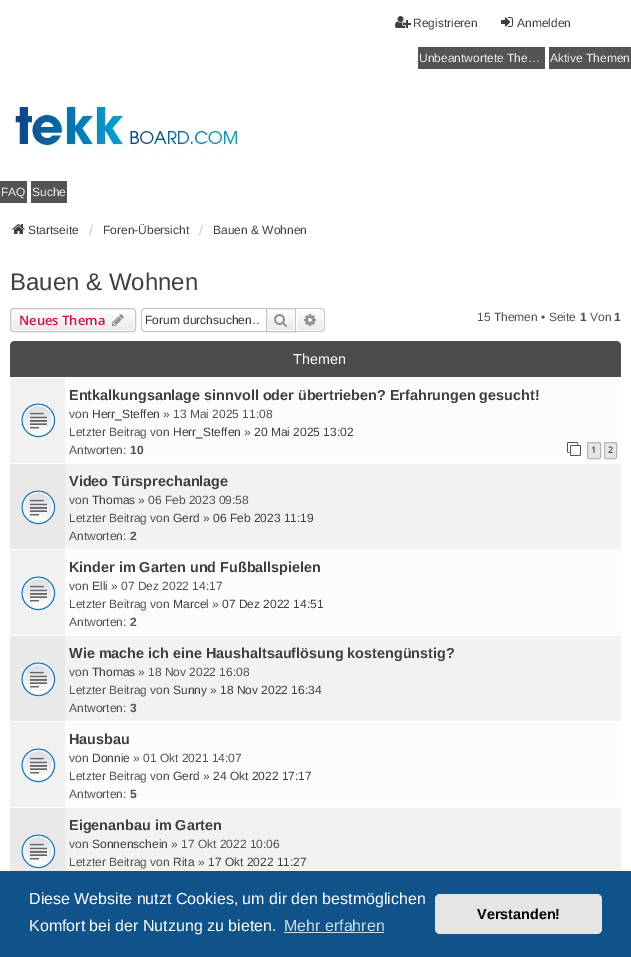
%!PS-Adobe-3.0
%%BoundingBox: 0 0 631 957
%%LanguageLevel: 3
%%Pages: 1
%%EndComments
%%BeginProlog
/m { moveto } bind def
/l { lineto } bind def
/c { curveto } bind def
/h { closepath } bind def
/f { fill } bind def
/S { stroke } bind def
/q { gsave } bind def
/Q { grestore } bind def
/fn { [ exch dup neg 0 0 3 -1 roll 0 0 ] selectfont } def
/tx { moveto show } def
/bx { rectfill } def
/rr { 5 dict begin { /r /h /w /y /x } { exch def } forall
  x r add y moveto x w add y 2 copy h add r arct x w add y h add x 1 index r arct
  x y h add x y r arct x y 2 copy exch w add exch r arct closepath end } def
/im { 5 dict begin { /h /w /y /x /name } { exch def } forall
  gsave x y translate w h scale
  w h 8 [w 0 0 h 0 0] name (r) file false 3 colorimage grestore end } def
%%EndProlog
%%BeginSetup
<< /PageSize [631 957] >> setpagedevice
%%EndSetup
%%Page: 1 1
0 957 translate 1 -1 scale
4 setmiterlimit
1 setgray
0 0 631 957 bx
(image0.raw) 395 16 16 12 im
/LiberationSans-Regular 12 fn
0.247 setgray
(Registrieren) 413 27 tx
(image1.raw) 501 17 12 10 im
(Anmelden) 517 27 tx
0.329 setgray
418 47 127 22 bx
0.933 setgray
(Unbeantwortete The…) 419 62 tx
0.329 setgray
549 47 82 22 bx
0.933 setgray
(Aktive Themen) 550 62 tx
(image2.raw) 10 95 230 60 im
0.329 setgray
0 181 27 22 bx
0.933 setgray
(FAQ) 1 196 tx
0.329 setgray
31 181 36 22 bx
0.933 setgray
(Suche) 32 196 tx
(image3.raw) 12 224 13 10 im
0.247 setgray
(Startseite) 28 234 tx
/LiberationSans-Regular 14 fn
0.792 setgray
(/) 89 235 tx
/LiberationSans-Regular 12 fn
0.247 setgray
(Foren-Übersicht) 103 234 tx
/LiberationSans-Regular 14 fn
0.792 setgray
(/) 199 235 tx
/LiberationSans-Regular 12 fn
0.247 setgray
(Bauen & Wohnen) 213 234 tx
/LiberationSans-Regular 24 fn
(Bauen & Wohnen) 10 290 tx
q
10 308 126 24 4 rr clip newpath
q 10 309 m 136 309 l 136 331 l 10 331 l h clip newpath
<< /ShadingType 2 /ColorSpace /DeviceRGB /Coords [73 309 73 331] /Extend [true true] /Function << /FunctionType 2 /Domain [0 1] /C0 [1 1 1] /C1 [0.914 0.914 0.914] /N 1 >> >> shfill Q
Q
1 setgray
11.5 309.5 123 21 2.5 rr S
0.78 0.765 0.749 setrgbcolor
10.5 308.5 125 23 3.5 rr S
/OpenSans-SemiBold 13 fn
0.827 0.067 0.255 setrgbcolor
(Neues Thema) 19 325 tx
(image4.raw) 112 314 12 12 im
0.78 0.765 0.749 setrgbcolor
145 308 m 266 308 l 266 332 l 145 332 l 143 332 141 330 141 328 c 141 312 l 141 310 143 308 145 308 c h 145 309 m 266 309 l 266 331 l 145 331 l 143 331 142 330 142 328 c 142 312 l 142 310 143 309 145 309 c h eofill
q
145 313 114 14 rectclip
/LiberationSans-Regular 12 fn
0.2 setgray
(Forum durchsuchen…) 145 324 tx
Q
q 268 312 m 294 312 l 294 330 l 268 330 l h clip newpath
<< /ShadingType 2 /ColorSpace /DeviceRGB /Coords [281 309 281 331] /Extend [true true] /Function << /FunctionType 2 /Domain [0 1] /C0 [1 1 1] /C1 [0.914 0.914 0.914] /N 1 >> >> shfill Q
266.5 308.5 29 23 rectstroke
(image5.raw) 274 314 13 13 im
q 296.5 309.5 m 321 309.5 l 322.5 309.5 323.5 310.5 323.5 312 c 323.5 328 l 323.5 329.5 322.5 330.5 321 330.5 c 296.5 330.5 l h clip newpath
<< /ShadingType 2 /ColorSpace /DeviceRGB /Coords [310 309 310 331] /Extend [true true] /Function << /FunctionType 2 /Domain [0 1] /C0 [1 1 1] /C1 [0.914 0.914 0.914] /N 1 >> >> shfill Q
1 setgray
296.5 309.5 m 321 309.5 l 322.5 309.5 323.5 310.5 323.5 312 c 323.5 328 l 323.5 329.5 322.5 330.5 321 330.5 c 296.5 330.5 l h S
0.78 0.765 0.749 setrgbcolor
296 308 m 321 308 l 323 308 325 310 325 312 c 325 328 l 325 330 323 332 321 332 c 296 332 l h 296 309 m 321 309 l 322.5 309 324 310.5 324 312 c 324 328 l 324 329.5 322.5 331 321 331 c 296 331 l h eofill
(image6.raw) 304 314 12 12 im
/LiberationSans-Regular 12 fn
0.322 setgray
(15 Themen • Seite) 477 321 tx
/LiberationSans-Bold 12 fn
(1) 580 321 tx
/LiberationSans-Regular 12 fn
(Von) 590 321 tx
/LiberationSans-Bold 12 fn
(1) 614 321 tx
0.298 setgray
15 341 m 616 341 l 619 341 621 343 621 346 c 621 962 l 10 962 l 10 346 l 10 343 12 341 15 341 c h f
/LiberationSans-Regular 14.4 fn
1 setgray
(Themen) 293 364 tx
0.98 0.988 0.996 setrgbcolor
65 378 556 429 bx
1 setgray
10 377 611 1 bx
0.945 setgray
10 378 55 85 bx
(image7.raw) 21 403 35 35 im
/LiberationSans-Bold 14.4 fn
0.247 setgray
(Entkalkungsanlage sinnvoll oder übertrieben? Erfahrungen gesucht!) 69 400 tx
/LiberationSans-Regular 12 fn
0.322 setgray
(von) 69 418 tx
0.247 setgray
(Herr_Steffen) 92 418 tx
0.322 setgray
(» 13 Mai 2025 11:08) 163 418 tx
(Letzter Beitrag von) 69 436 tx
0.247 setgray
(Herr_Steffen) 173 436 tx
0.322 setgray
(») 244 436 tx
0.247 setgray
(20 Mai 2025 13:02) 254 436 tx
0.322 setgray
(Antworten:) 69 454 tx
/LiberationSans-Bold 12 fn
(10) 130 454 tx
(image8.raw) 567 442 14 14 im
0.906 setgray
587.5 442.5 13 16 1.5 rr q f Q
0.71 setgray
S
/OpenSans-SemiBold 9 fn
0.322 setgray
(1) 591 453 tx
0.906 setgray
604.5 442.5 12 16 1.5 rr q f Q
0.71 setgray
S
0.322 setgray
(2) 608 453 tx
0.949 setgray
65 464 556 85 bx
1 setgray
10 463 611 1 bx
0.914 setgray
10 464 55 85 bx
(image9.raw) 21 490 35 35 im
/LiberationSans-Bold 14.4 fn
0.247 setgray
(Video Türsprechanlage) 69 486 tx
/LiberationSans-Regular 12 fn
0.322 setgray
(von) 69 504 tx
0.247 setgray
(Thomas) 92 504 tx
0.322 setgray
(» 06 Feb 2023 09:58) 138 504 tx
(Letzter Beitrag von) 69 522 tx
0.247 setgray
(Gerd) 173 522 tx
0.322 setgray
(») 203 522 tx
0.247 setgray
(06 Feb 2023 11:19) 213 522 tx
0.322 setgray
(Antworten:) 69 540 tx
/LiberationSans-Bold 12 fn
(2) 130 540 tx
1 setgray
10 549 611 1 bx
0.945 setgray
10 550 55 85 bx
(image7.raw) 21 576 35 35 im
/LiberationSans-Bold 14.4 fn
0.247 setgray
(Kinder im Garten und Fußballspielen) 69 572 tx
/LiberationSans-Regular 12 fn
0.322 setgray
(von) 69 590 tx
0.247 setgray
(Elli) 92 590 tx
0.322 setgray
(» 07 Dez 2022 14:17) 111 590 tx
(Letzter Beitrag von) 69 608 tx
0.247 setgray
(Marcel) 173 608 tx
0.322 setgray
(») 212 608 tx
0.247 setgray
(07 Dez 2022 14:51) 222 608 tx
0.322 setgray
(Antworten:) 69 626 tx
/LiberationSans-Bold 12 fn
(2) 130 626 tx
0.949 setgray
65 636 556 85 bx
1 setgray
10 635 611 1 bx
0.914 setgray
10 636 55 85 bx
(image9.raw) 21 662 35 35 im
/LiberationSans-Bold 14.4 fn
0.247 setgray
(Wie mache ich eine Haushaltsauflösung kostengünstig?) 69 658 tx
/LiberationSans-Regular 12 fn
0.322 setgray
(von) 69 676 tx
0.247 setgray
(Thomas) 92 676 tx
0.322 setgray
(» 18 Nov 2022 16:08) 138 676 tx
(Letzter Beitrag von) 69 694 tx
0.247 setgray
(Sunny) 173 694 tx
0.322 setgray
(») 210 694 tx
0.247 setgray
(18 Nov 2022 16:34) 220 694 tx
0.322 setgray
(Antworten:) 69 712 tx
/LiberationSans-Bold 12 fn
(3) 130 712 tx
1 setgray
10 721 611 1 bx
0.945 setgray
10 722 55 85 bx
(image7.raw) 21 748 35 35 im
/LiberationSans-Bold 14.4 fn
0.247 setgray
(Hausbau) 69 744 tx
/LiberationSans-Regular 12 fn
0.322 setgray
(von) 69 762 tx
0.247 setgray
(Donnie) 92 762 tx
0.322 setgray
(» 01 Okt 2021 14:07) 133 762 tx
(Letzter Beitrag von) 69 780 tx
0.247 setgray
(Gerd) 173 780 tx
0.322 setgray
(») 203 780 tx
0.247 setgray
(24 Okt 2022 17:17) 213 780 tx
0.322 setgray
(Antworten:) 69 798 tx
/LiberationSans-Bold 12 fn
(5) 130 798 tx
0.949 setgray
65 808 556 63 bx
1 setgray
10 807 611 1 bx
0.914 setgray
10 808 55 63 bx
(image9.raw) 21 834 35 35 im
/LiberationSans-Bold 14.4 fn
0.247 setgray
(Eigenanbau im Garten) 69 830 tx
/LiberationSans-Regular 12 fn
0.322 setgray
(von) 69 848 tx
0.247 setgray
(Sonnenschein) 92 848 tx
0.322 setgray
(» 17 Okt 2022 10:06) 171 848 tx
(Letzter Beitrag von) 69 866 tx
0.247 setgray
(Rita) 173 866 tx
0.322 setgray
(») 198 866 tx
0.247 setgray
(17 Okt 2022 11:27) 208 866 tx
0.059 0.325 0.541 setrgbcolor
0 871 631 86 bx
/LiberationSans-Regular 16 fn
1 setgray
(Diese Website nutzt Cookies, um dir den bestmöglichen) 29 904 tx
(Komfort bei der Nutzung zu bieten.) 29 931 tx
0.812 0.867 0.91 setrgbcolor
(Mehr erfahren) 284 931 tx
284 932 100 1 bx
0.898 setgray
435 894 167 40 5 rr f
/LiberationSans-Bold 14.4 fn
0 setgray
(Verstanden!) 477 919 tx
showpage
%%EOF
